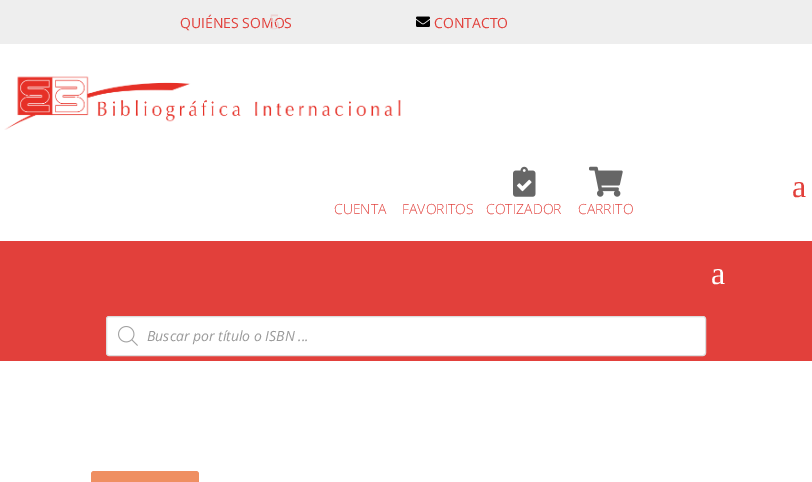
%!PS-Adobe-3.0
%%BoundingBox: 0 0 812 482
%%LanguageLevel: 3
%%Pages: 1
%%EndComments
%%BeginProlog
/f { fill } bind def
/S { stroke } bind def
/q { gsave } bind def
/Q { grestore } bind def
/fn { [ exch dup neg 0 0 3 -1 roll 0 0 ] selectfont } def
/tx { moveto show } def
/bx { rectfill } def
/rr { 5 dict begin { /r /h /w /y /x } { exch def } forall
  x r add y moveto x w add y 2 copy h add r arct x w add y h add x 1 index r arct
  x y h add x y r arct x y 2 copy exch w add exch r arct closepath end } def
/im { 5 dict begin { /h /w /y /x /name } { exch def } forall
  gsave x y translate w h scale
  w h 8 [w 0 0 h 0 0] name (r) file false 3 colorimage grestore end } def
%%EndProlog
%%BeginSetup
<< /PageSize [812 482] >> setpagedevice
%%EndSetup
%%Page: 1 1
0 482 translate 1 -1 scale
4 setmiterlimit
1 setgray
0 0 812 482 bx
0.933 setgray
0 0 812 44 bx
/OpenSans-Regular 14 fn
0.886 0.251 0.231 setrgbcolor
(QUIÉNES SOMOS) 180 28 tx
/LiberationSerif-Regular 22 fn
0.925 0.827 0.827 setrgbcolor
(5) 269 29 tx
(image0.raw) 416 16 14 11 im
/OpenSans-Regular 14 fn
0.886 0.251 0.231 setrgbcolor
(CONTACTO) 434 28 tx
(image1.raw) 4 76 397 54 im
/LiberationSerif-Regular 32 fn
(a) 792 197 tx
/OpenSans-Light 14 fn
(CUENTA) 334 214 tx
(FAVORITOS) 402 214 tx
(image2.raw) 513 166 23 31 im
(COTIZADOR) 486 214 tx
(image3.raw) 589 166 34 31 im
(CARRITO) 578 214 tx
0 241 812 120 bx
/LiberationSerif-Regular 32 fn
1 setgray
(a) 711 284 tx
106.5 316.5 599 39 2.5 rr q f Q
0.867 setgray
S
(image4.raw) 118 326 20 20 im
/OpenSans-Italic 14 fn
0.6 setgray
(Buscar por título o ISBN ...) 147 341 tx
0.937 0.561 0.38 setrgbcolor
91 471 108 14 3 rr f
showpage
%%EOF
